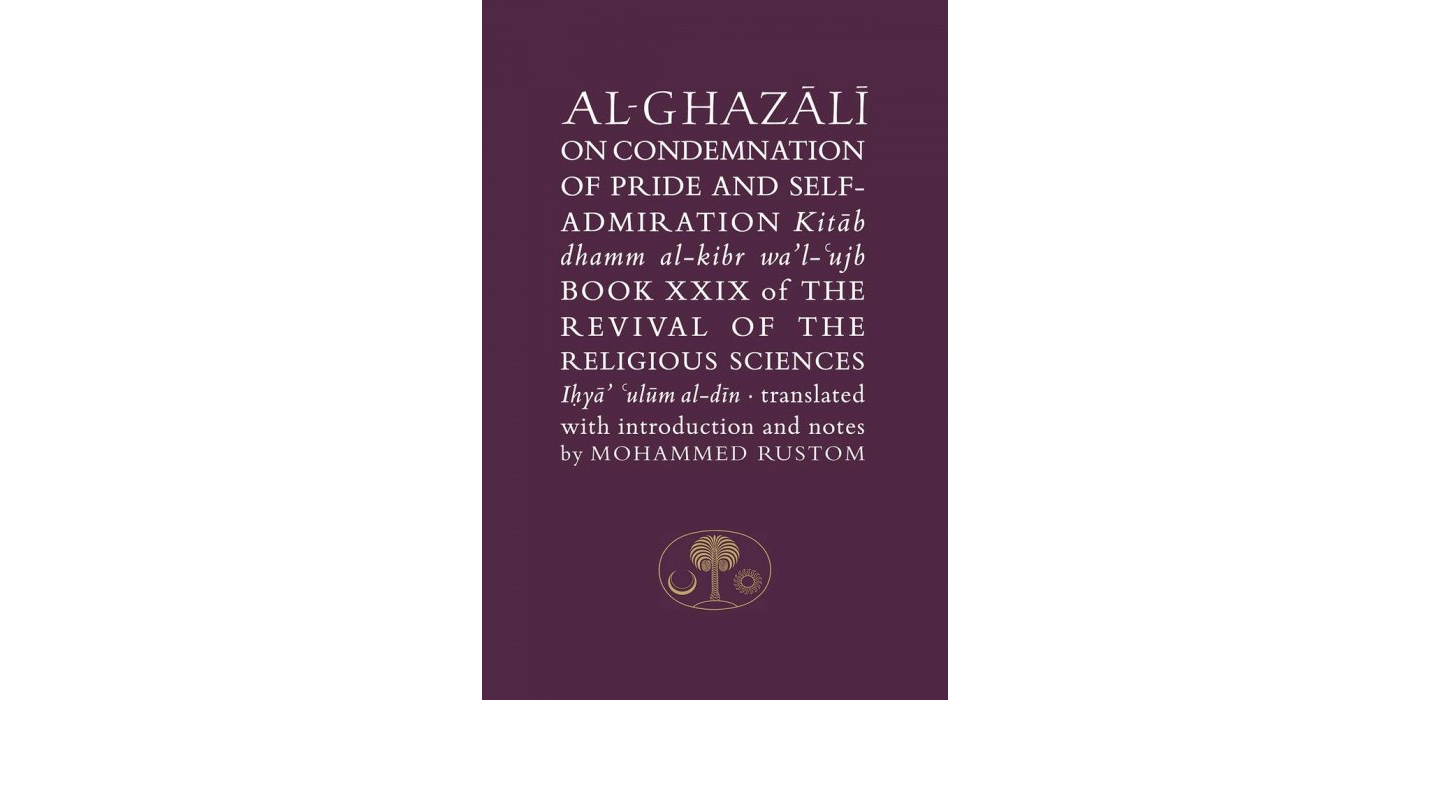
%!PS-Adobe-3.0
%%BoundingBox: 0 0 1430 785
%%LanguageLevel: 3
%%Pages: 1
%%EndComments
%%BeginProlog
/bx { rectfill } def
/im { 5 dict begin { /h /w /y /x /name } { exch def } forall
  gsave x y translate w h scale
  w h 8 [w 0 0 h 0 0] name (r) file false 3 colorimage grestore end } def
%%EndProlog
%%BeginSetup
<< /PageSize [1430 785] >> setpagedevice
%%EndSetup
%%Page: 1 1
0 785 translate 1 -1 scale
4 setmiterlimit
1 setgray
0 0 1430 785 bx
(image0.raw) 482 0 466 700 im
showpage
%%EOF
